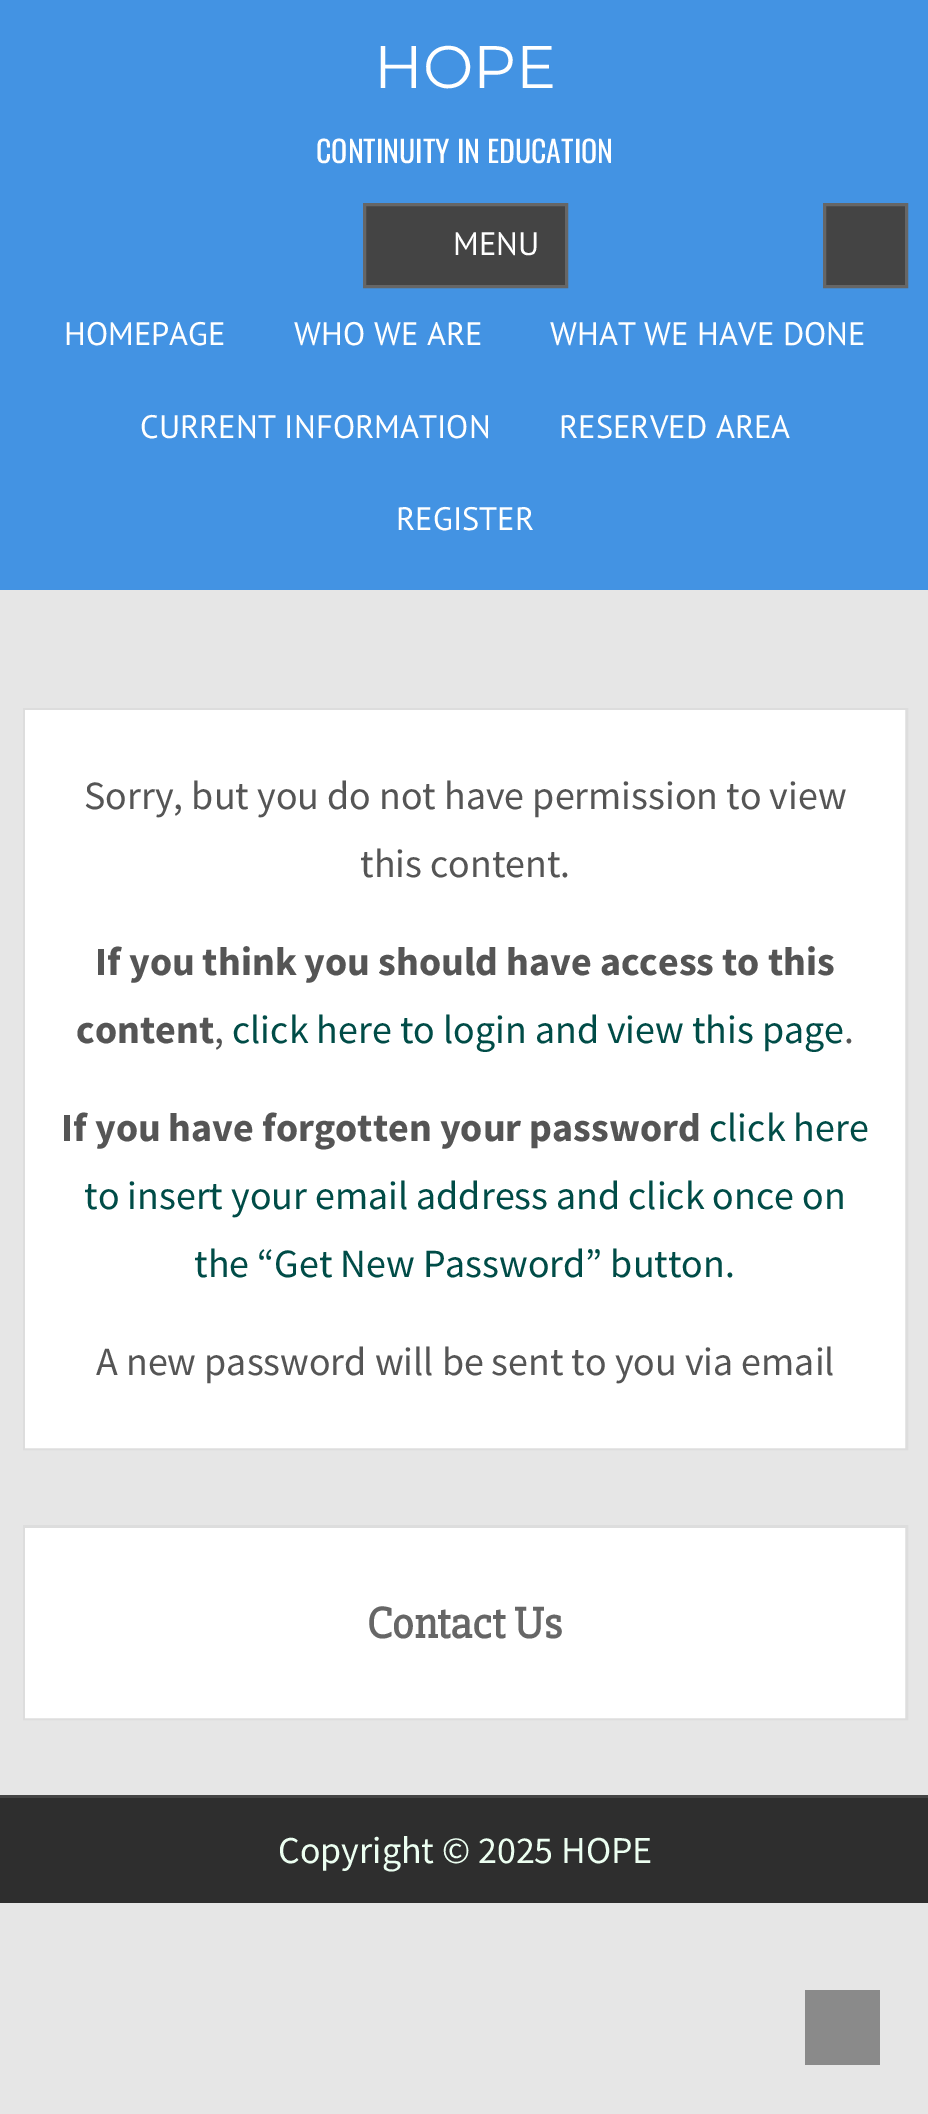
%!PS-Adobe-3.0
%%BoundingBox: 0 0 928 2114
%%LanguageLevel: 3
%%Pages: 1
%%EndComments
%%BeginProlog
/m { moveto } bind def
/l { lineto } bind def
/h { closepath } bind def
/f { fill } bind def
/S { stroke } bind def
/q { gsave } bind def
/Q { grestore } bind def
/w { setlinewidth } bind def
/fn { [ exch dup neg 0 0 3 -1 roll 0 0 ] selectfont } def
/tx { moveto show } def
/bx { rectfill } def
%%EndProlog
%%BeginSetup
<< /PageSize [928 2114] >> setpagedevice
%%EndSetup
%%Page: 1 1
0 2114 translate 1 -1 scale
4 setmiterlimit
0.902 setgray
0 0 928 2114 bx
0.263 0.576 0.89 setrgbcolor
0 0 928 590 bx
/Montserrat-Regular 60 fn
1 setgray
(HOPE) 374 88 tx
/Oswald-Regular 30 fn
(CONTINUITY IN EDUCATION) 316 163 tx
0.267 setgray
364.5 204.5 m 566.5 204.5 l 566.5 286.5 l 364.5 286.5 l h q f Q
0.4 setgray
3 w
S
/PTSans-Regular 32.5 fn
1 setgray
(MENU) 453 255 tx
(HOMEPAGE) 64 345 tx
(WHO WE ARE) 294 345 tx
(WHAT WE HAVE DONE) 550 345 tx
(CURRENT INFORMATION) 140 438 tx
(RESERVED AREA) 559 438 tx
(REGISTER) 396 530 tx
0.267 setgray
824.5 204.5 m 906.5 204.5 l 906.5 286.5 l 824.5 286.5 l h q f Q
0.4 setgray
S
1 setgray
28 713 874 732 bx
0.867 setgray
24.5 709.5 882 739 rectstroke
1 setgray
26.5 711.5 877 735 rectstroke
/SourceSansPro-Regular 40 fn
0.333 setgray
(Sorry, but you do not have permission to view) 84 809 tx
(this content.) 360 877 tx
/SourceSansPro-Bold 40 fn
(If you think you should have access to this) 95 975 tx
(content) 76 1043 tx
/SourceSansPro-Regular 40 fn
(,) 214 1043 tx
0 0.298 0.278 setrgbcolor
(click here to login and view this page) 232 1043 tx
0.333 setgray
(.) 844 1043 tx
/SourceSansPro-Bold 40 fn
(If you have forgotten your password) 61 1141 tx
/SourceSansPro-Regular 40 fn
0 0.298 0.278 setrgbcolor
(click here) 709 1141 tx
(to insert your email address and click once on) 84 1209 tx
(the “Get New Password” button.) 194 1277 tx
0.333 setgray
(A new password will be sent to you via email) 96 1375 tx
1 setgray
28 1531 874 184 bx
0.867 setgray
24.5 1526.5 882 192 rectstroke
1 setgray
26.5 1529.5 877 187 rectstroke
/Slabo27px-Bold 45 fn
0.4 setgray
(Contact Us) 367 1638 tx
0.18 setgray
0 1798 928 105 bx
0.267 setgray
0 1795 928 3 bx
/SourceSansPro-Regular 38 fn
0.925 1 0.945 setrgbcolor
(Copyright © 2025 HOPE) 278 1863 tx
0.541 setgray
805 1990 75 75 bx
showpage
%%EOF
